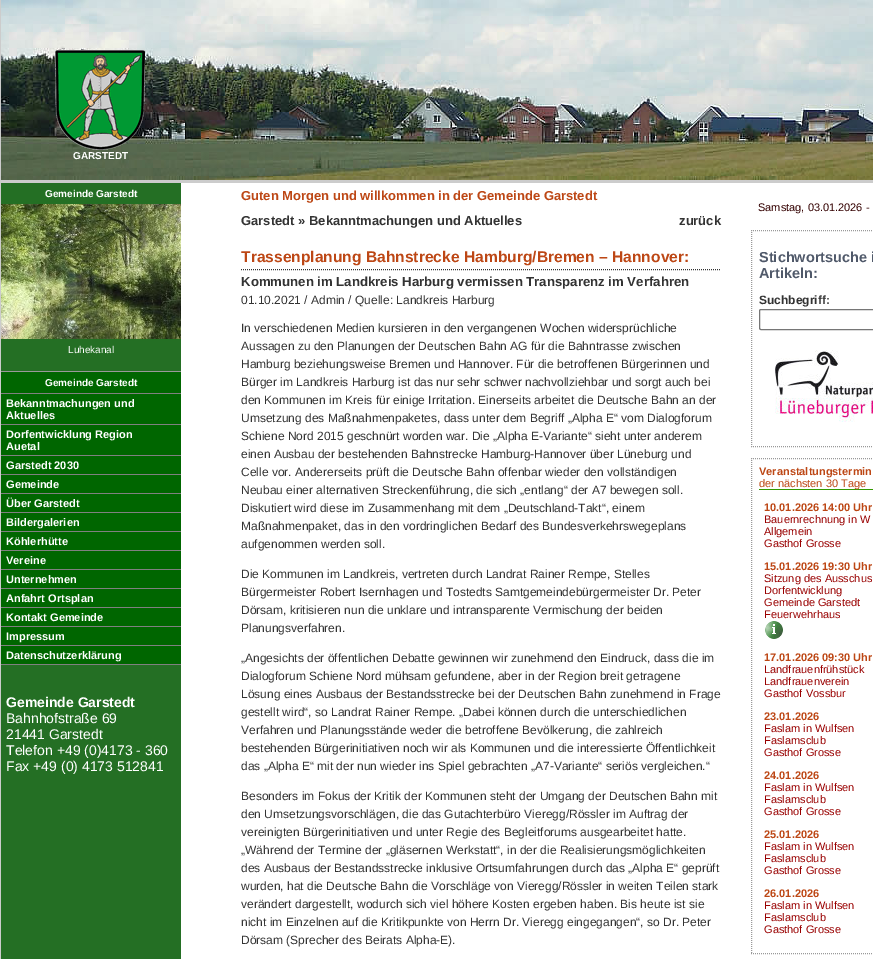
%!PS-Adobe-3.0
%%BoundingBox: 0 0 873 959
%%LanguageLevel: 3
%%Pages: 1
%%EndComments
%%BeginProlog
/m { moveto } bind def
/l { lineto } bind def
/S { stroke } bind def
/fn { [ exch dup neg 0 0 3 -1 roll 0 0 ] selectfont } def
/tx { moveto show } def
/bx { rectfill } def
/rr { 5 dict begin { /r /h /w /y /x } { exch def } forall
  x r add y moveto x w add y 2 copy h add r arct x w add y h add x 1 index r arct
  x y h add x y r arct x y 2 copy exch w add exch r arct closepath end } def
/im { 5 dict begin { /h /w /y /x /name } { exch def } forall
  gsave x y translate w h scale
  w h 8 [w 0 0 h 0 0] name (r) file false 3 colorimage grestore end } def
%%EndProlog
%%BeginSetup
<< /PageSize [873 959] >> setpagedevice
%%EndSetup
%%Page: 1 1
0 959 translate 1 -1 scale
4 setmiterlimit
1 setgray
0 0 873 959 bx
0.8 setgray
0 0 1 959 bx
1 180 872 3 bx
(image0.raw) 1 0 872 180 im
(image1.raw) 55 50 90 100 im
/LiberationSans-Bold 10 fn
1 setgray
(GARSTEDT) 73 159 tx
0.141 0.435 0.141 setrgbcolor
1 183 180 776 bx
1 setgray
(Gemeinde Garstedt) 45 197 tx
(image2.raw) 1 204 180 135 im
/LiberationSans-Regular 10 fn
(Luhekanal) 68 353 tx
0.6 setgray
1 371 180 1 bx
0 0.4 0 setrgbcolor
1 372 180 21 bx
/LiberationSans-Bold 10 fn
1 setgray
(Gemeinde Garstedt) 45 386 tx
0.502 setgray
1 393 180 1 bx
0 0.4 0 setrgbcolor
1 394 180 30 bx
0.502 setgray
1 424 180 1 bx
/LiberationSans-Bold 11 fn
1 setgray
(Bekanntmachungen und) 6 407 tx
(Aktuelles) 6 419 tx
0 0.4 0 setrgbcolor
1 425 180 30 bx
0.502 setgray
1 455 180 1 bx
1 setgray
(Dorfentwicklung Region) 6 438 tx
(Auetal) 6 450 tx
0 0.4 0 setrgbcolor
1 456 180 18 bx
0.502 setgray
1 474 180 1 bx
1 setgray
(Garstedt 2030) 6 469 tx
0 0.4 0 setrgbcolor
1 475 180 18 bx
0.502 setgray
1 493 180 1 bx
1 setgray
(Gemeinde) 6 488 tx
0 0.4 0 setrgbcolor
1 494 180 18 bx
0.502 setgray
1 512 180 1 bx
1 setgray
(Über Garstedt) 6 507 tx
0 0.4 0 setrgbcolor
1 513 180 18 bx
0.502 setgray
1 531 180 1 bx
1 setgray
(Bildergalerien) 6 526 tx
0 0.4 0 setrgbcolor
1 532 180 18 bx
0.502 setgray
1 550 180 1 bx
1 setgray
(Köhlerhütte) 6 545 tx
0 0.4 0 setrgbcolor
1 551 180 18 bx
0.502 setgray
1 569 180 1 bx
1 setgray
(Vereine) 6 564 tx
0 0.4 0 setrgbcolor
1 570 180 18 bx
0.502 setgray
1 588 180 1 bx
1 setgray
(Unternehmen) 6 583 tx
0 0.4 0 setrgbcolor
1 589 180 18 bx
0.502 setgray
1 607 180 1 bx
1 setgray
(Anfahrt Ortsplan) 6 602 tx
0 0.4 0 setrgbcolor
1 608 180 18 bx
0.502 setgray
1 626 180 1 bx
1 setgray
(Kontakt Gemeinde) 6 621 tx
0 0.4 0 setrgbcolor
1 627 180 18 bx
0.502 setgray
1 645 180 1 bx
1 setgray
(Impressum) 6 640 tx
0 0.4 0 setrgbcolor
1 646 180 18 bx
0.502 setgray
1 664 180 1 bx
1 setgray
(Datenschutzerklärung) 6 659 tx
/LiberationSans-Bold 14 fn
(Gemeinde Garstedt) 6 707 tx
/LiberationSans-Regular 14 fn
(Bahnhofstraße 69) 6 723 tx
(21441 Garstedt) 6 739 tx
(Telefon +49 \(0\)4173 - 360) 6 755 tx
(Fax +49 \(0\) 4173 512841) 6 771 tx
/LiberationSans-Bold 13 fn
0.741 0.278 0.082 setrgbcolor
(Guten Morgen und willkommen in der Gemeinde Garstedt) 241 200 tx
0.2 setgray
(Garstedt » Bekanntmachungen und Aktuelles) 241 225 tx
(zurück) 679 225 tx
[1 1] 0 setdash
241 269.5 m 721 269.5 l S
/LiberationSans-Bold 15.6 fn
0.741 0.278 0.082 setrgbcolor
(Trassenplanung Bahnstrecke Hamburg/Bremen – Hannover:) 241 262 tx
/LiberationSans-Bold 13.2 fn
0.2 setgray
(Kommunen im Landkreis Harburg vermissen Transparenz im Verfahren) 241 286 tx
/LiberationSans-Regular 12 fn
(01.10.2021 / Admin / Quelle: Landkreis Harburg) 241 304 tx
(In verschiedenen Medien kursieren in den vergangenen Wochen widersprüchliche) 241 332 tx
(Aussagen zu den Planungen der Deutschen Bahn AG für die Bahntrasse zwischen) 241 350 tx
(Hamburg beziehungsweise Bremen und Hannover. Für die betroffenen Bürgerinnen und) 241 368 tx
(Bürger im Landkreis Harburg ist das nur sehr schwer nachvollziehbar und sorgt auch bei) 241 386 tx
(den Kommunen im Kreis für einige Irritation. Einerseits arbeitet die Deutsche Bahn an der) 241 404 tx
(Umsetzung des Maßnahmenpaketes, dass unter dem Begriff „Alpha E“ vom Dialogforum) 241 422 tx
(Schiene Nord 2015 geschnürt worden war. Die „Alpha E-Variante“ sieht unter anderem) 241 440 tx
(einen Ausbau der bestehenden Bahnstrecke Hamburg-Hannover über Lüneburg und) 241 458 tx
(Celle vor. Andererseits prüft die Deutsche Bahn offenbar wieder den vollständigen) 241 476 tx
(Neubau einer alternativen Streckenführung, die sich „entlang“ der A7 bewegen soll.) 241 494 tx
(Diskutiert wird diese im Zusammenhang mit dem „Deutschland-Takt“, einem) 241 512 tx
(Maßnahmenpaket, das in den vordringlichen Bedarf des Bundesverkehrswegeplans) 241 530 tx
(aufgenommen werden soll.) 241 548 tx
(Die Kommunen im Landkreis, vertreten durch Landrat Rainer Rempe, Stelles) 241 578 tx
(Bürgermeister Robert Isernhagen und Tostedts Samtgemeindebürgermeister Dr. Peter) 241 596 tx
(Dörsam, kritisieren nun die unklare und intransparente Vermischung der beiden) 241 614 tx
(Planungsverfahren.) 241 632 tx
(„Angesichts der öffentlichen Debatte gewinnen wir zunehmend den Eindruck, dass die im) 241 662 tx
(Dialogforum Schiene Nord mühsam gefundene, aber in der Region breit getragene) 241 680 tx
(Lösung eines Ausbaus der Bestandsstrecke bei der Deutschen Bahn zunehmend in Frage) 241 698 tx
(gestellt wird“, so Landrat Rainer Rempe. „Dabei können durch die unterschiedlichen) 241 716 tx
(Verfahren und Planungsstände weder die betroffene Bevölkerung, die zahlreich) 241 734 tx
(bestehenden Bürgerinitiativen noch wir als Kommunen und die interessierte Öffentlichkeit) 241 752 tx
(das „Alpha E“ mit der nun wieder ins Spiel gebrachten „A7-Variante“ seriös vergleichen.“) 241 770 tx
(Besonders im Fokus der Kritik der Kommunen steht der Umgang der Deutschen Bahn mit) 241 800 tx
(den Umsetzungsvorschlägen, die das Gutachterbüro Vieregg/Rössler im Auftrag der) 241 818 tx
(vereinigten Bürgerinitiativen und unter Regie des Begleitforums ausgearbeitet hatte.) 241 836 tx
(„Während der Termine der „gläsernen Werkstatt“, in der die Realisierungsmöglichkeiten) 241 854 tx
(des Ausbaus der Bestandsstrecke inklusive Ortsumfahrungen durch das „Alpha E“ geprüft) 241 872 tx
(wurden, hat die Deutsche Bahn die Vorschläge von Vieregg/Rössler in weiten Teilen stark) 241 890 tx
(verändert dargestellt, wodurch sich viel höhere Kosten ergeben haben. Bis heute ist sie) 241 908 tx
(nicht im Einzelnen auf die Kritikpunkte von Herrn Dr. Vieregg eingegangen“, so Dr. Peter) 241 926 tx
(Dörsam \(Sprecher des Beirats Alpha-E\).) 241 944 tx
/LiberationSans-Regular 11 fn
0.2 0 0 setrgbcolor
(Samstag, 03.01.2026 -) 758 211 tx
0.6 setgray
751 230.5 m 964 230.5 l S
751 446.5 m 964 446.5 l S
751.5 230 m 751.5 447 l S
/LiberationSans-Bold 14.5 fn
0.314 0.349 0.416 setrgbcolor
(Stichwortsuche i) 759 262 tx
(Artikeln:) 759 278 tx
/LiberationSans-Bold 12 fn
0.2 setgray
(Suchbegriff:) 759 304 tx
0.463 setgray
[] 0 setdash
759.5 309.5 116 20 1.5 rr S
(image3.raw) 775 350 98 72 im
0.6 setgray
[1 1] 0 setdash
751 458.5 m 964 458.5 l S
751 953.5 m 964 953.5 l S
751.5 458 m 751.5 954 l S
0.2 0.6 0 setrgbcolor
759 489 114 1 bx
/LiberationSans-Bold 11 fn
0.741 0.278 0.082 setrgbcolor
(Veranstaltungstermin) 759 475 tx
/LiberationSans-Regular 11 fn
(der nächsten 30 Tage) 759 487 tx
/LiberationSans-Bold 11 fn
(10.01.2026 14:00 Uhr) 764 511 tx
/LiberationSans-Regular 11 fn
0.6 0 0 setrgbcolor
(Bauernrechnung in W) 764 523 tx
(Allgemein) 764 535 tx
(Gasthof Grosse) 764 547 tx
/LiberationSans-Bold 11 fn
0.741 0.278 0.082 setrgbcolor
(15.01.2026 19:30 Uhr) 764 570 tx
/LiberationSans-Regular 11 fn
0.6 0 0 setrgbcolor
(Sitzung des Ausschus) 764 582 tx
(Dorfentwicklung) 764 594 tx
(Gemeinde Garstedt) 764 606 tx
(Feuerwehrhaus) 764 618 tx
(image4.raw) 765 621 18 18 im
/LiberationSans-Bold 11 fn
0.741 0.278 0.082 setrgbcolor
(17.01.2026 09:30 Uhr) 764 661 tx
/LiberationSans-Regular 11 fn
0.6 0 0 setrgbcolor
(Landfrauenfrühstück) 764 673 tx
(Landfrauenverein) 764 685 tx
(Gasthof Vossbur) 764 697 tx
/LiberationSans-Bold 11 fn
0.741 0.278 0.082 setrgbcolor
(23.01.2026) 764 720 tx
/LiberationSans-Regular 11 fn
0.6 0 0 setrgbcolor
(Faslam in Wulfsen) 764 732 tx
(Faslamsclub) 764 744 tx
(Gasthof Grosse) 764 756 tx
/LiberationSans-Bold 11 fn
0.741 0.278 0.082 setrgbcolor
(24.01.2026) 764 779 tx
/LiberationSans-Regular 11 fn
0.6 0 0 setrgbcolor
(Faslam in Wulfsen) 764 791 tx
(Faslamsclub) 764 803 tx
(Gasthof Grosse) 764 815 tx
/LiberationSans-Bold 11 fn
0.741 0.278 0.082 setrgbcolor
(25.01.2026) 764 838 tx
/LiberationSans-Regular 11 fn
0.6 0 0 setrgbcolor
(Faslam in Wulfsen) 764 850 tx
(Faslamsclub) 764 862 tx
(Gasthof Grosse) 764 874 tx
/LiberationSans-Bold 11 fn
0.741 0.278 0.082 setrgbcolor
(26.01.2026) 764 897 tx
/LiberationSans-Regular 11 fn
0.6 0 0 setrgbcolor
(Faslam in Wulfsen) 764 909 tx
(Faslamsclub) 764 921 tx
(Gasthof Grosse) 764 933 tx
showpage
%%EOF
